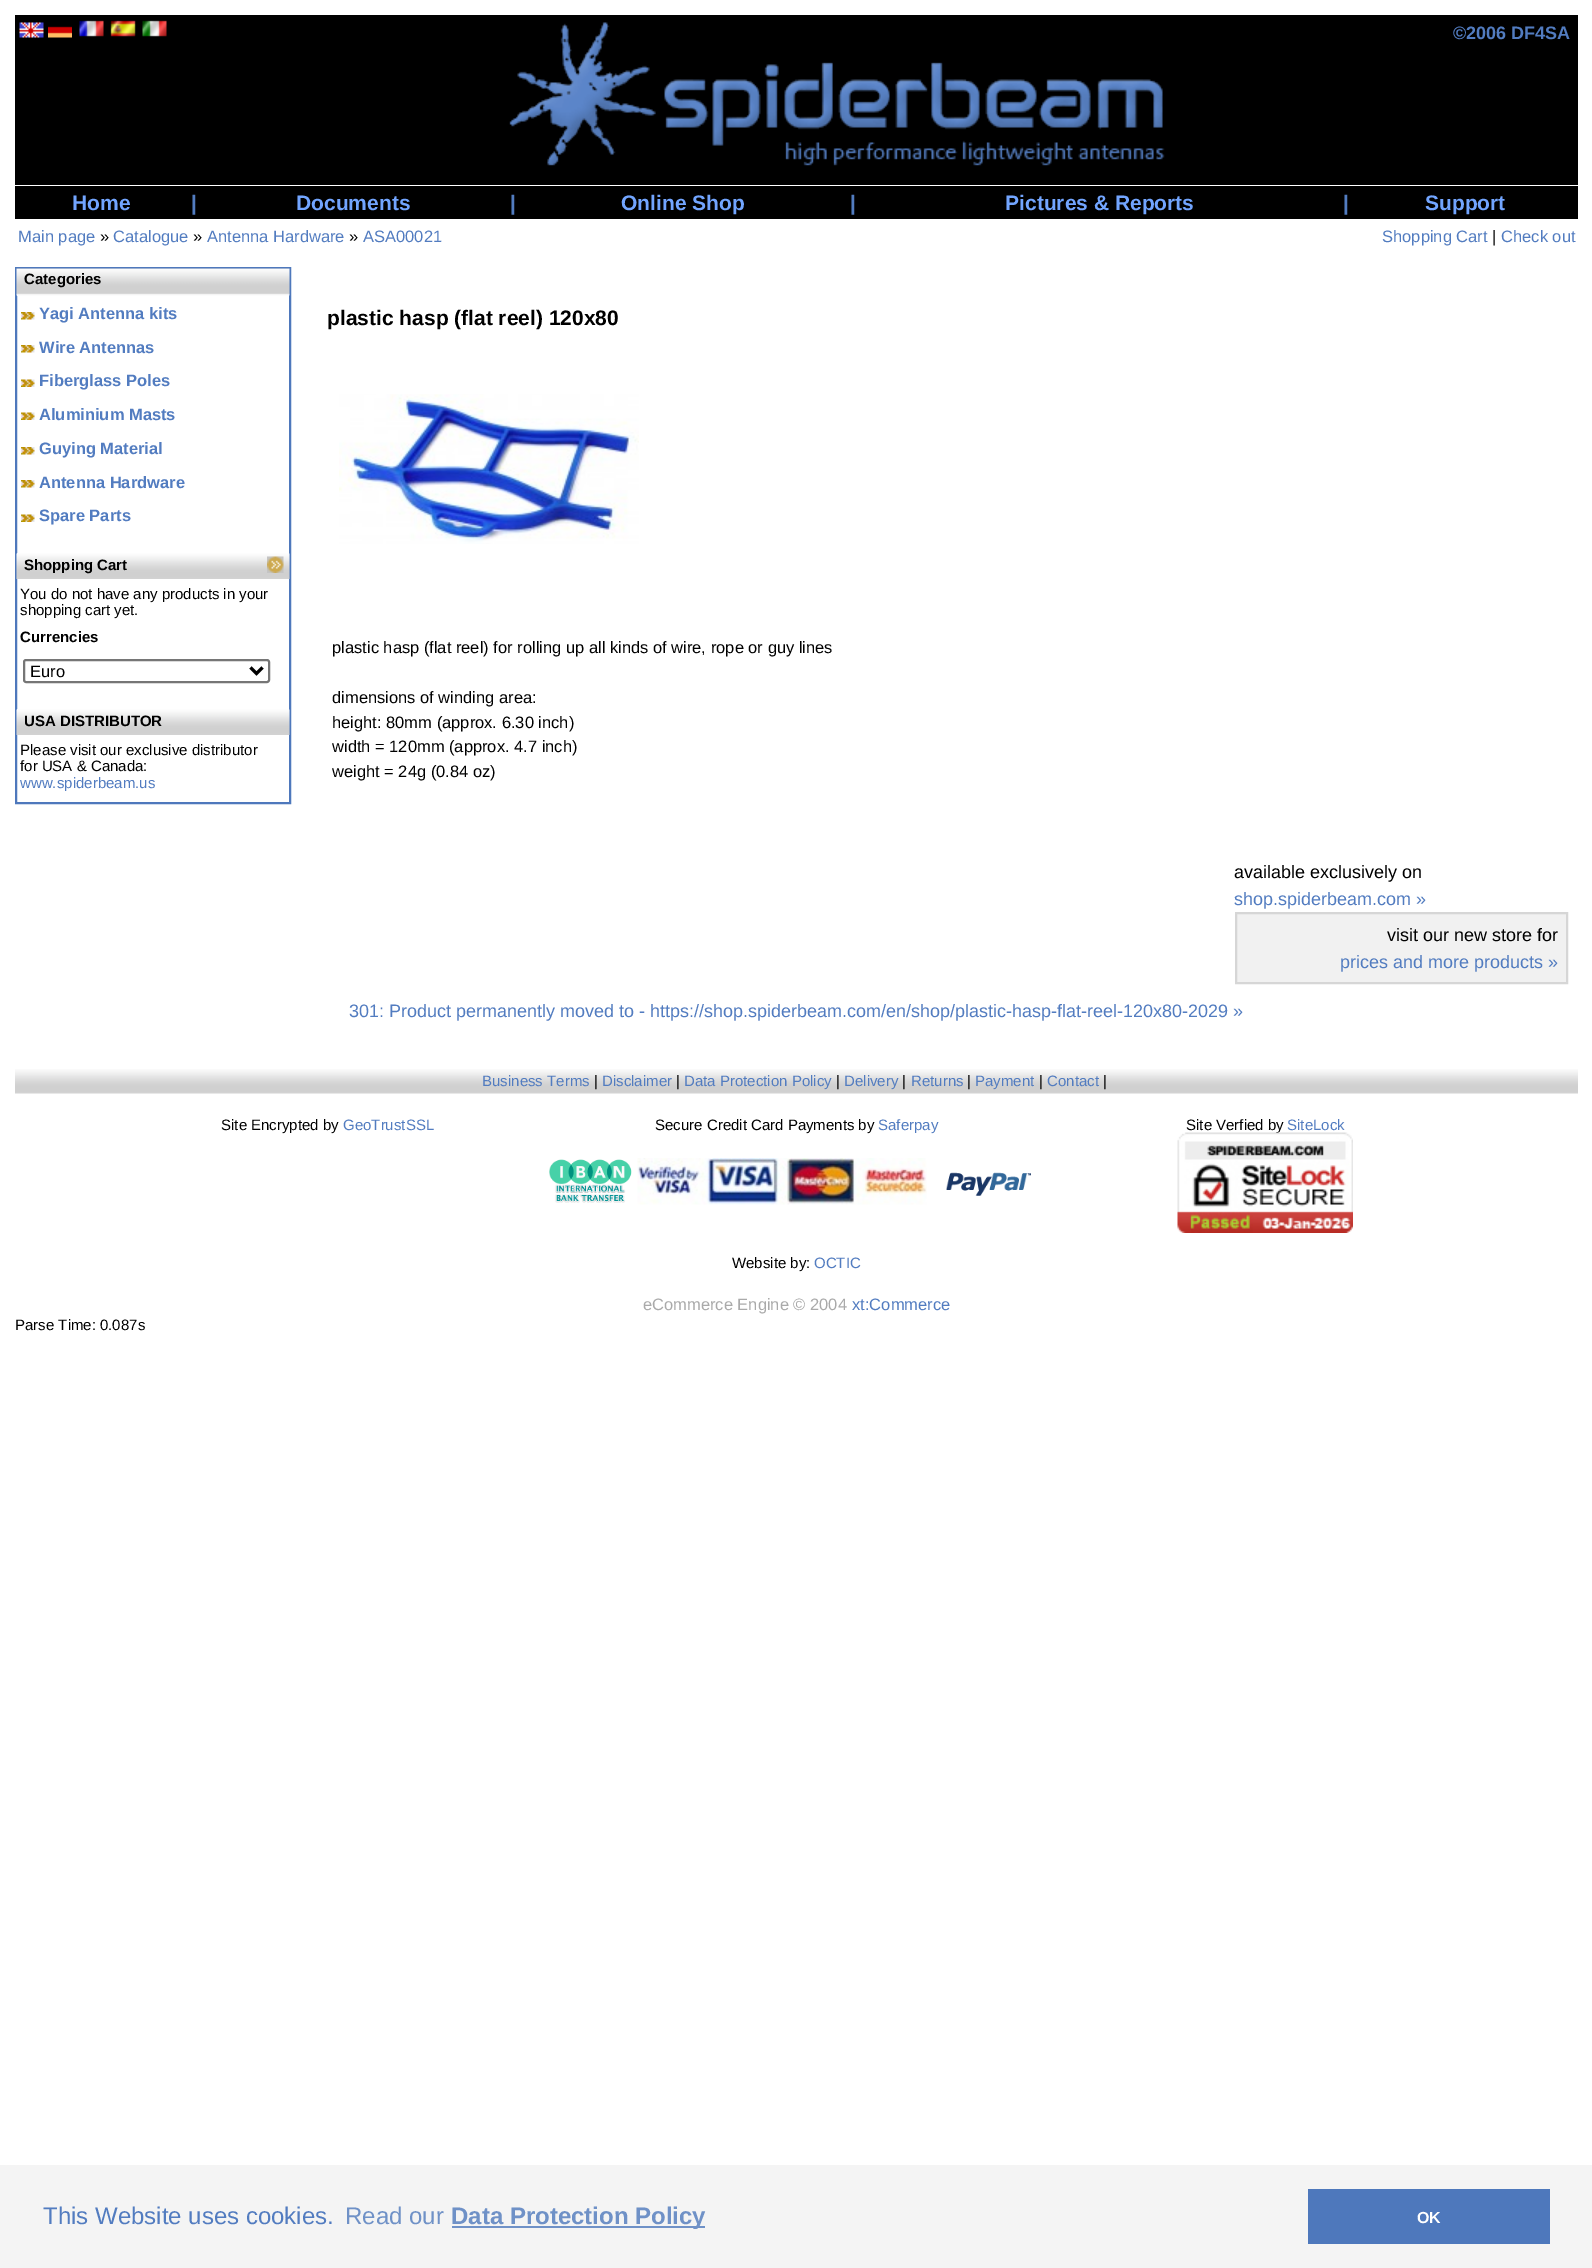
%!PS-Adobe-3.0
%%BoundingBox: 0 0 1592 2268
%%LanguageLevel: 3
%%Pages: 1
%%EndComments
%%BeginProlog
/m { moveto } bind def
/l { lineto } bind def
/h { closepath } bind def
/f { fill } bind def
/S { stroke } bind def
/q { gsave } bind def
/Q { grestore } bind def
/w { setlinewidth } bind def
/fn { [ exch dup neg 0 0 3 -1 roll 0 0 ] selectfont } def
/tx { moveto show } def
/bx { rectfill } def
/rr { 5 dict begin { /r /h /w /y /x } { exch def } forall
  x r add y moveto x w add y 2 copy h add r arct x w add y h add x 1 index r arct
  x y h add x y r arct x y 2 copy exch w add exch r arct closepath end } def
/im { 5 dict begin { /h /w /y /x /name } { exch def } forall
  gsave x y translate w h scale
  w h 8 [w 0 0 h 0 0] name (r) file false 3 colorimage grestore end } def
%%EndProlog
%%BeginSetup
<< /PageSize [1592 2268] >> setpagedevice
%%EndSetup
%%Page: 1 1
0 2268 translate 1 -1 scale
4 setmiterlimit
1 setgray
0 0 1592 2268 bx
0 setgray
15 15 1563 170 bx
(image0.raw) 19 22 25 16 im
(image1.raw) 48 26 24 12 im
(image2.raw) 79 20 25 17 im
(image3.raw) 110 20 26 17 im
(image4.raw) 142 20 25 17 im
(image5.raw) 509 22 656 144 im
/LiberationSans-Bold 18 fn
0.322 0.486 0.753 setrgbcolor
(©2006 DF4SA) 1453 39 tx
0 setgray
15 186 1563 33 bx
/LiberationSans-Bold 21 fn
0.447 0.647 1 setrgbcolor
(Home) 72 210 tx
0.322 0.486 0.753 setrgbcolor
(|) 191 210 tx
0.447 0.647 1 setrgbcolor
(Documents) 296 210 tx
0.322 0.486 0.753 setrgbcolor
(|) 510 210 tx
0.447 0.647 1 setrgbcolor
(Online Shop) 621 210 tx
0.322 0.486 0.753 setrgbcolor
(|) 850 210 tx
0.447 0.647 1 setrgbcolor
(Pictures & Reports) 1005 210 tx
0.322 0.486 0.753 setrgbcolor
(|) 1343 210 tx
0.447 0.647 1 setrgbcolor
(Support) 1425 210 tx
/LiberationSans-Regular 16.5 fn
0.322 0.486 0.753 setrgbcolor
(Main page) 18 242 tx
0 setgray
(») 100 242 tx
0.322 0.486 0.753 setrgbcolor
(Catalogue) 113 242 tx
0 setgray
(») 193 242 tx
0.322 0.486 0.753 setrgbcolor
(Antenna Hardware) 207 242 tx
0 setgray
(») 349 242 tx
0.322 0.486 0.753 setrgbcolor
(ASA00021) 363 242 tx
(Shopping Cart) 1382 242 tx
0 setgray
(|) 1492 242 tx
0.322 0.486 0.753 setrgbcolor
(Check out) 1501 242 tx
0.306 0.471 0.737 setrgbcolor
2 w
16 268 274 535 rectstroke
(image6.raw) 16 268 274 28 im
/LiberationSans-Bold 15 fn
0 setgray
(Categories) 24 284 tx
(image7.raw) 21 312 14 8 im
/LiberationSans-Bold 16.5 fn
0.322 0.486 0.753 setrgbcolor
(Yagi Antenna kits) 39 319 tx
(image7.raw) 21 345 14 8 im
(Wire Antennas) 39 353 tx
(image8.raw) 21 379 14 8 im
(Fiberglass Poles) 39 386 tx
(image8.raw) 21 412 14 8 im
(Aluminium Masts) 39 420 tx
(image7.raw) 21 447 14 8 im
(Guying Material) 39 454 tx
(image7.raw) 21 480 14 8 im
(Antenna Hardware) 39 488 tx
(image8.raw) 21 514 14 8 im
(Spare Parts) 39 521 tx
(image9.raw) 16 553 274 26 im
/LiberationSans-Bold 15 fn
0 setgray
(Shopping Cart) 24 570 tx
(image10.raw) 267 556 17 17 im
/LiberationSans-Regular 15 fn
(You do not have any products in your) 20 599 tx
(shopping cart yet.) 20 615 tx
/LiberationSans-Bold 15 fn
(Currencies) 20 642 tx
0.463 setgray
24 660 245 22 2 rr S
0 setgray
3 w
250.5 667.5 m 256.5 673.5 l 262.5 667.5 l S
/LiberationSans-Regular 16.5 fn
(Euro) 30 677 tx
(image11.raw) 16 709 274 26 im
/LiberationSans-Bold 15 fn
(USA DISTRIBUTOR) 24 726 tx
/LiberationSans-Regular 15 fn
(Please visit our exclusive distributor) 20 755 tx
(for USA & Canada:) 20 771 tx
0.322 0.486 0.753 setrgbcolor
(www.spiderbeam.us) 20 788 tx
/LiberationSans-Bold 21 fn
0 setgray
(plastic hasp \(flat reel\) 120x80) 327 325 tx
(image12.raw) 339 394 300 150 im
/LiberationSans-Regular 16.5 fn
(plastic hasp \(flat reel\) for rolling up all kinds of wire, rope or guy lines) 332 653 tx
(dimensions of winding area:) 332 703 tx
(height: 80mm \(approx. 6.30 inch\)) 332 728 tx
(width = 120mm \(approx. 4.7 inch\)) 332 752 tx
(weight = 24g \(0.84 oz\)) 332 777 tx
/LiberationSans-Regular 18 fn
(available exclusively on) 1234 878 tx
0.322 0.486 0.753 setrgbcolor
(shop.spiderbeam.com ») 1234 905 tx
0.945 setgray
1236 913 m 1567 913 l 1567 983 l 1236 983 l h q f Q
0.839 setgray
2 w
S
0 setgray
(visit our new store for) 1387 941 tx
0.322 0.486 0.753 setrgbcolor
(prices and more products ») 1340 968 tx
(301: Product permanently moved to - https://shop.spiderbeam.com/en/shop/plastic-hasp-flat-reel-120x80-2029 ») 349 1017 tx
(image13.raw) 15 1069 1563 25 im
/LiberationSans-Regular 15 fn
(Business Terms) 482 1086 tx
0 setgray
(|) 594 1086 tx
0.322 0.486 0.753 setrgbcolor
(Disclaimer) 602 1086 tx
0 setgray
(|) 676 1086 tx
0.322 0.486 0.753 setrgbcolor
(Data Protection Policy) 684 1086 tx
0 setgray
(|) 836 1086 tx
0.322 0.486 0.753 setrgbcolor
(Delivery) 844 1086 tx
0 setgray
(|) 902 1086 tx
0.322 0.486 0.753 setrgbcolor
(Returns) 911 1086 tx
0 setgray
(|) 967 1086 tx
0.322 0.486 0.753 setrgbcolor
(Payment) 975 1086 tx
0 setgray
(|) 1039 1086 tx
0.322 0.486 0.753 setrgbcolor
(Contact) 1047 1086 tx
0 setgray
(|) 1103 1086 tx
(Site Encrypted by) 221 1130 tx
0.322 0.486 0.753 setrgbcolor
(GeoTrustSSL) 343 1130 tx
0 setgray
(Secure Credit Card Payments by) 655 1130 tx
0.322 0.486 0.753 setrgbcolor
(Saferpay) 878 1130 tx
0 setgray
(Site Verfied by) 1186 1130 tx
0.322 0.486 0.753 setrgbcolor
(SiteLock) 1287 1130 tx
(image14.raw) 549 1159 83 44 im
(image15.raw) 637 1158 290 47 im
(image16.raw) 946 1172 85 24 im
(image17.raw) 1177 1132 176 101 im
0 setgray
(Website by:) 732 1268 tx
0.322 0.486 0.753 setrgbcolor
(OCTIC) 814 1268 tx
/LiberationSans-Regular 16.5 fn
0.667 setgray
(eCommerce Engine © 2004) 643 1310 tx
0.322 0.486 0.753 setrgbcolor
(xt:Commerce) 852 1310 tx
/LiberationSans-Regular 15 fn
0 setgray
(Parse Time: 0.087s) 15 1330 tx
0.957 setgray
0 2165 1592 103 bx
/LiberationSans-Regular 24 fn
0.322 0.486 0.753 setrgbcolor
(This Website uses cookies.) 43 2224 tx
0.435 0.569 0.78 setrgbcolor
(Read our) 345 2224 tx
452 2226 253 2 bx
/LiberationSans-Bold 24 fn
(Data Protection Policy) 451 2224 tx
0.306 0.471 0.737 setrgbcolor
1308 2189 242 55 bx
/LiberationSans-Bold 16 fn
1 setgray
(OK) 1417 2223 tx
showpage
%%EOF
